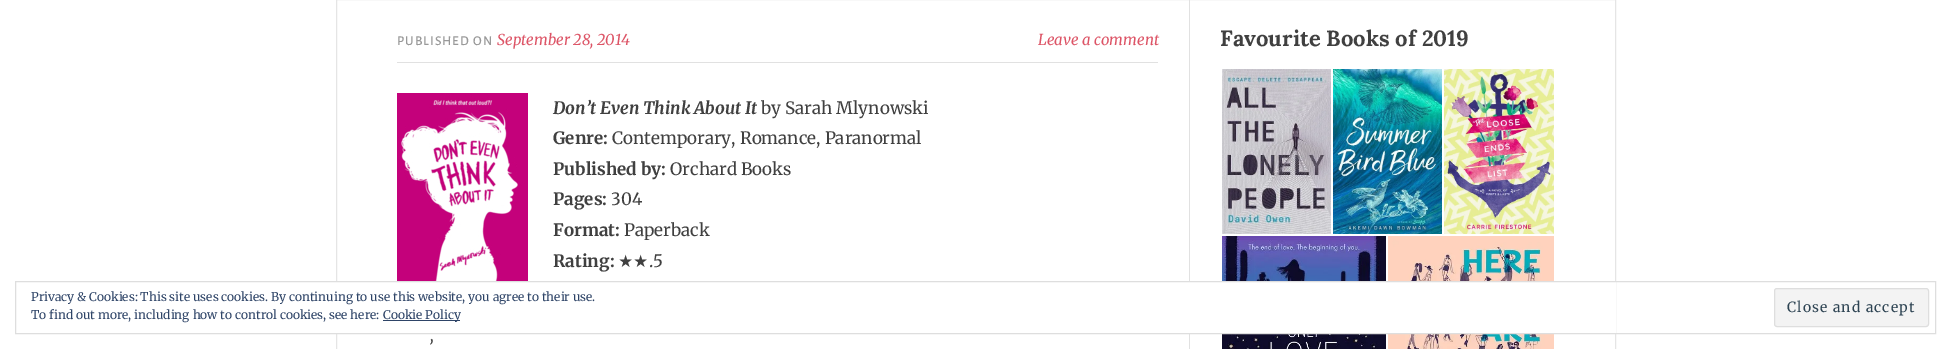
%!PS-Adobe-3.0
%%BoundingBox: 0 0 1951 349
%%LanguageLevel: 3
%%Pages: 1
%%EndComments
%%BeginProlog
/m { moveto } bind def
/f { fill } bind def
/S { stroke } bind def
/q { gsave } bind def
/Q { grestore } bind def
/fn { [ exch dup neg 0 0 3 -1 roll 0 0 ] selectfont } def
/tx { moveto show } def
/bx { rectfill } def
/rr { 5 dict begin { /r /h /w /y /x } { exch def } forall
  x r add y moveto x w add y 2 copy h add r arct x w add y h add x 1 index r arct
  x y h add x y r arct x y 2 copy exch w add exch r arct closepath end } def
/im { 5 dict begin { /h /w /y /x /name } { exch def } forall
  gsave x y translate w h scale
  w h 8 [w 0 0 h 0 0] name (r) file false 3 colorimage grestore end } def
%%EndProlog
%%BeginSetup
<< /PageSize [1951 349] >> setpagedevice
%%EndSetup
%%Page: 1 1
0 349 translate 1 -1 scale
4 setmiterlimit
1 setgray
0 0 1951 349 bx
0.898 setgray
336.5 -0.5 1279 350 rectstroke
0.882 setgray
397 62 761 1 bx
/AlegreyaSans-Medium 13.5 fn
0.6 setgray
397 45 m 1 0 (PUBLISHED ON) ashow
/Merriweather-Italic 15 fn
0.867 0.329 0.4 setrgbcolor
(September 28, 2014) 497 45 tx
(Leave a comment) 1038 45 tx
(image0.raw) 397 93 131 188 im
/Merriweather-BoldItalic 17 fn
0.251 setgray
(Don’t Even Think About It) 553 114 tx
/Merriweather-Regular 17 fn
(by Sarah Mlynowski) 761 114 tx
/Merriweather-Bold 17 fn
(Genre:) 553 144 tx
/Merriweather-Regular 17 fn
(Contemporary, Romance, Paranormal) 612 144 tx
/Merriweather-Bold 17 fn
(Published by:) 553 175 tx
/Merriweather-Regular 17 fn
(Orchard Books) 670 175 tx
/Merriweather-Bold 17 fn
(Pages:) 553 205 tx
/Merriweather-Regular 17 fn
(304) 611 205 tx
/Merriweather-Bold 17 fn
(Format:) 553 236 tx
/Merriweather-Regular 17 fn
(Paperback) 624 236 tx
/Merriweather-Bold 17 fn
(Rating:) 553 267 tx
/DejaVuSans-Regular 17 fn
(★★) 618 267 tx
/Merriweather-Regular 17 fn
(.5) 649 267 tx
/Merriweather-Italic 17 fn
(’) 428 353 tx
0.882 setgray
1189 0 1 349 bx
/Lora-Bold 22 fn
0.251 setgray
(Favourite Books of 2019) 1220 46 tx
(image1.raw) 1222 69 109 165 im
(image2.raw) 1333 69 109 165 im
(image3.raw) 1444 69 110 165 im
(image4.raw) 1222 236 164 113 im
(image5.raw) 1388 236 166 113 im
1 setgray
336 282 1280 51 bx
0.871 setgray
15.5 281.5 1920 52 rectstroke
/Merriweather-Regular 12 fn
0.18 0.267 0.404 setrgbcolor
(Privacy & Cookies: This site uses cookies. By continuing to use this website, you agree to their use.) 31 301 tx
(To find out more, including how to control cookies, see here:) 31 319 tx
383 320 77 1 bx
(Cookie Policy) 383 319 tx
0.953 setgray
1774.5 288.5 154 38 2.5 rr q f Q
0.871 setgray
S
/Merriweather-Regular 14 fn
0.18 0.267 0.325 setrgbcolor
1787 312 m 1.1 0 (Close and accept) ashow
showpage
%%EOF
